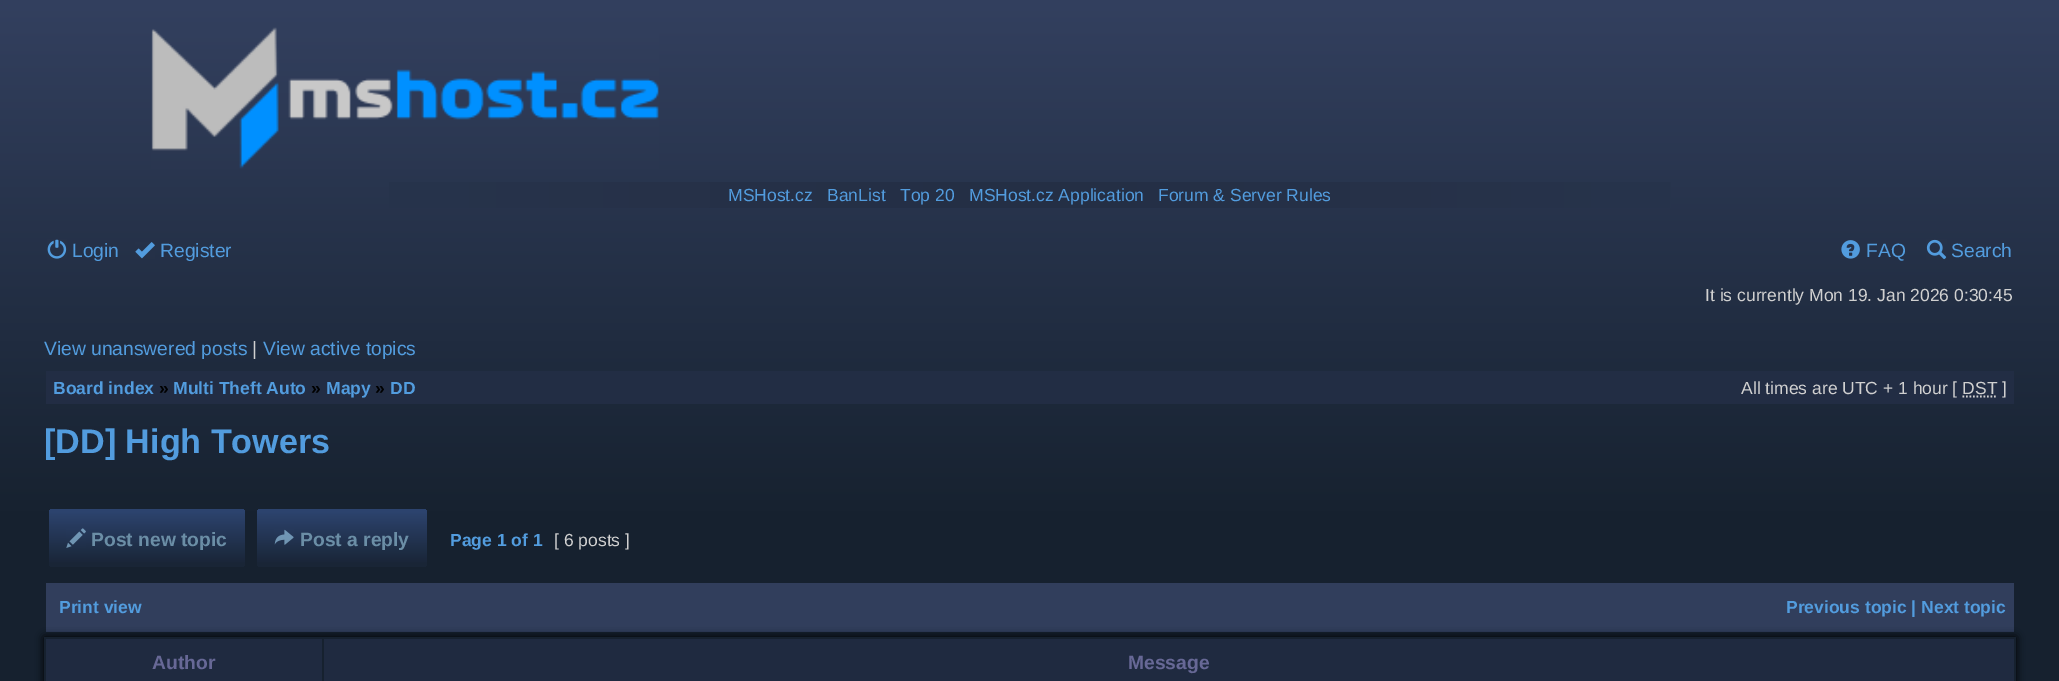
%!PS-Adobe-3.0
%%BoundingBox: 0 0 2059 681
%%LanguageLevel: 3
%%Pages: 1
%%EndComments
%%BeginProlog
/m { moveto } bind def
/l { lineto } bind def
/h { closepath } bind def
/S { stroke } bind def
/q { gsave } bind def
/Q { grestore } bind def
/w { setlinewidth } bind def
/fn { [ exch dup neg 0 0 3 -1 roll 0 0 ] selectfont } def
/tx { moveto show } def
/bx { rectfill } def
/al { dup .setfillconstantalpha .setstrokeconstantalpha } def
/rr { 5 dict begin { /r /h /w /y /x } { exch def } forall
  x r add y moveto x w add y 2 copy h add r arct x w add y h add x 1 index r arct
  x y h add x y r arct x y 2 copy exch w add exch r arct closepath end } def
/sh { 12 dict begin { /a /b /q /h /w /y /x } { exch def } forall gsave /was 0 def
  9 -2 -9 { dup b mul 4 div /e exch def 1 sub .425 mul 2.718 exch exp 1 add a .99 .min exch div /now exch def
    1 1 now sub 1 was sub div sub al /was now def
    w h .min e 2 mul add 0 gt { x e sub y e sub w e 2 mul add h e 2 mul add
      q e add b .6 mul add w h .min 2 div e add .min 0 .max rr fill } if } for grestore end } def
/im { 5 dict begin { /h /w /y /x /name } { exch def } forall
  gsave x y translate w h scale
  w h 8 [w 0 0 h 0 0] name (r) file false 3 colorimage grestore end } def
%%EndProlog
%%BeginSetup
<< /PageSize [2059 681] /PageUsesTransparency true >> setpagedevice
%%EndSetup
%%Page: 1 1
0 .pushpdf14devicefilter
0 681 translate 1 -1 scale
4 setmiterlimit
1 setgray
0 0 2059 681 bx
q 0 0 m 2059 0 l 2059 681 l 0 681 l h clip newpath
<< /ShadingType 2 /ColorSpace /DeviceRGB /Coords [1030 0 1030 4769] /Extend [true true] /Function << /FunctionType 3 /Domain [0 1] /Functions [<< /FunctionType 2 /Domain [0 1] /C0 [0.2 0.251 0.373] /C1 [0.086 0.129 0.184] /N 1 >> << /FunctionType 2 /Domain [0 1] /C0 [0.086 0.129 0.184] /C1 [0.086 0.129 0.184] /N 1 >>] /Bounds [0.11] /Encode [0 1 0 1] >> >> shfill Q
q 46 371 m 2014 371 l 2014 404 l 46 404 l h clip newpath
<< /ShadingType 2 /ColorSpace /DeviceRGB /Coords [1030 0 1030 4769] /Extend [true true] /Function << /FunctionType 3 /Domain [0 1] /Functions [<< /FunctionType 2 /Domain [0 1] /C0 [0.165 0.208 0.322] /C1 [0.125 0.165 0.251] /N 1 >> << /FunctionType 2 /Domain [0 1] /C0 [0.125 0.165 0.251] /C1 [0.125 0.165 0.251] /N 1 >>] /Bounds [0.11] /Encode [0 1 0 1] >> >> shfill Q
(image0.raw) 151 27 508 142 im
q 389 182 m 1671 182 l 1671 208 l 389 208 l h clip newpath
<< /ShadingType 2 /ColorSpace /DeviceRGB /Coords [44 195 2016 195] /Extend [true true] /Function << /FunctionType 3 /Domain [0 1] /Functions [<< /FunctionType 2 /Domain [0 1] /C0 [0.157 0.208 0.302] /C1 [0.157 0.208 0.302] /N 1 >> << /FunctionType 2 /Domain [0 1] /C0 [0.157 0.208 0.302] /C1 [0.141 0.184 0.271] /N 1 >> << /FunctionType 2 /Domain [0 1] /C0 [0.141 0.184 0.271] /C1 [0.157 0.208 0.302] /N 1 >> << /FunctionType 2 /Domain [0 1] /C0 [0.157 0.208 0.302] /C1 [0.157 0.208 0.302] /N 1 >>] /Bounds [0.1 0.5 0.9] /Encode [0 1 0 1 0 1 0 1] >> >> shfill Q
/LiberationSans-Regular 17.5 fn
0.322 0.612 0.871 setrgbcolor
(MSHost.cz) 728 201 tx
(BanList) 827 201 tx
(Top 20) 900 201 tx
(MSHost.cz Application) 969 201 tx
(Forum & Server Rules) 1158 201 tx
(image1.raw) 47 239 20 20 im
/LiberationSans-Regular 19.25 fn
(Login) 72 257 tx
(image2.raw) 135 242 20 17 im
(Register) 160 257 tx
(image3.raw) 1841 240 19 19 im
(FAQ) 1866 257 tx
(image4.raw) 1926 239 21 21 im
(Search) 1951 257 tx
/LiberationSans-Regular 17.5 fn
0.816 setgray
(It is currently Mon 19. Jan 2026 0:30:45) 1705 301 tx
/LiberationSans-Regular 19.25 fn
0.322 0.612 0.871 setrgbcolor
(View unanswered posts) 44 355 tx
0.816 setgray
(|) 252 355 tx
0.322 0.612 0.871 setrgbcolor
(View active topics) 263 355 tx
/LiberationSans-Bold 17.5 fn
(Board index) 53 394 tx
0 setgray
(») 159 394 tx
0.322 0.612 0.871 setrgbcolor
(Multi Theft Auto) 173 394 tx
0 setgray
(») 311 394 tx
0.322 0.612 0.871 setrgbcolor
(Mapy) 326 394 tx
0 setgray
(») 375 394 tx
0.322 0.612 0.871 setrgbcolor
(DD) 390 394 tx
/LiberationSans-Regular 17.5 fn
0.816 setgray
(All times are UTC + 1 hour [ DST ]) 1741 394 tx
1.8 w
[1.75 1.75] 0 setdash
1962.5 396.5 m 1997.5 396.5 l S
/LiberationSans-Bold 34.1 fn
0.322 0.612 0.871 setrgbcolor
([DD] High Towers) 44 453 tx
q 49 509 196 58 4 rr clip newpath
<< /ShadingType 2 /ColorSpace /DeviceRGB /Coords [147 509 147 567] /Extend [true true] /Function << /FunctionType 3 /Domain [0 1] /Functions [<< /FunctionType 2 /Domain [0 1] /C0 [0.173 0.263 0.431] /C1 [0.173 0.263 0.431] /N 1 >> << /FunctionType 2 /Domain [0 1] /C0 [0.173 0.263 0.431] /C1 [0.098 0.145 0.212] /N 1 >> << /FunctionType 2 /Domain [0 1] /C0 [0.098 0.145 0.212] /C1 [0.098 0.145 0.212] /N 1 >>] /Bounds [0.05 0.95] /Encode [0 1 0 1 0 1] >> >> shfill Q
(image5.raw) 66 528 20 20 im
/LiberationSans-Bold 19.25 fn
0.42 0.557 0.651 setrgbcolor
(Post new topic) 91 546 tx
q 257 509 170 58 4 rr clip newpath
<< /ShadingType 2 /ColorSpace /DeviceRGB /Coords [342 509 342 567] /Extend [true true] /Function << /FunctionType 3 /Domain [0 1] /Functions [<< /FunctionType 2 /Domain [0 1] /C0 [0.173 0.263 0.431] /C1 [0.173 0.263 0.431] /N 1 >> << /FunctionType 2 /Domain [0 1] /C0 [0.173 0.263 0.431] /C1 [0.098 0.145 0.212] /N 1 >> << /FunctionType 2 /Domain [0 1] /C0 [0.098 0.145 0.212] /C1 [0.098 0.145 0.212] /N 1 >>] /Bounds [0.05 0.95] /Encode [0 1 0 1 0 1] >> >> shfill Q
(image6.raw) 274 529 20 16 im
(Post a reply) 300 546 tx
/LiberationSans-Bold 17.5 fn
0.322 0.612 0.871 setrgbcolor
(Page 1 of 1) 450 546 tx
/LiberationSans-Regular 17.5 fn
0.816 setgray
([ 6 posts ]) 554 546 tx
0.192 0.243 0.361 setrgbcolor
46 583 1968 49 bx
/LiberationSans-Bold 17.5 fn
0.322 0.612 0.871 setrgbcolor
(Print view) 59 613 tx
(Previous topic | Next topic) 1786 613 tx
q
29 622 m 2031 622 l 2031 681 l 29 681 l h 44 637 m 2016 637 l 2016 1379 l 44 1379 l h eoclip newpath
0 setgray
44 637 1972 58 0 4.5 1 sh
Q
0.122 0.165 0.251 setrgbcolor
46 639 276 42 bx
/LiberationSans-Bold 19.25 fn
0.404 0.408 0.588 setrgbcolor
(Author) 152 669 tx
0.122 0.165 0.251 setrgbcolor
324 639 1690 42 bx
0.404 0.408 0.588 setrgbcolor
(Message) 1128 669 tx
.poppdf14devicefilter showpage
%%EOF
